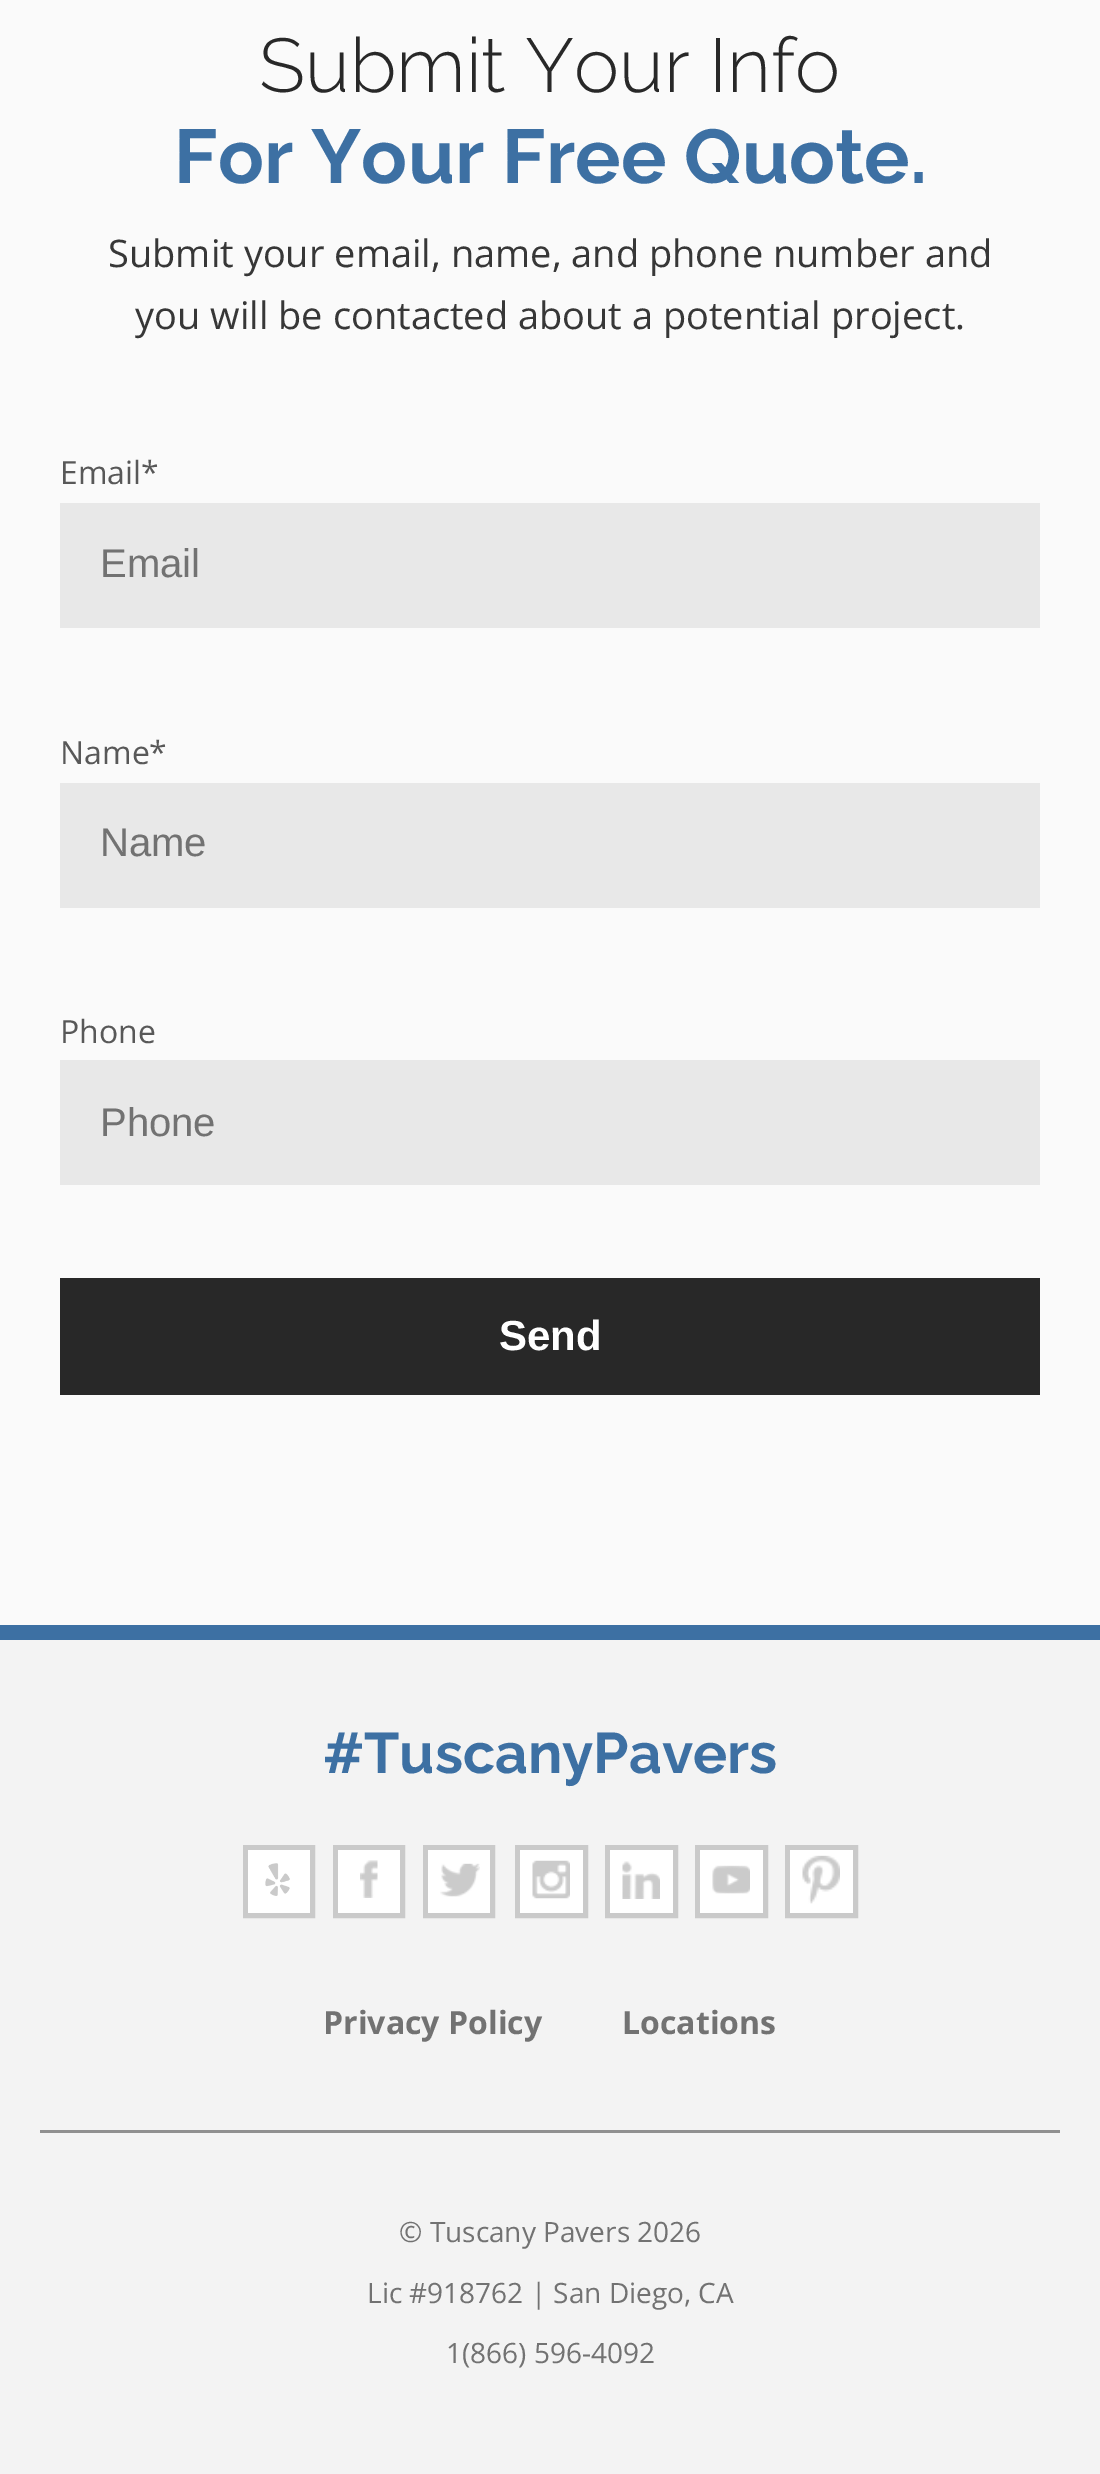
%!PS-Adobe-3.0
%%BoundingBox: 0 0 1100 2474
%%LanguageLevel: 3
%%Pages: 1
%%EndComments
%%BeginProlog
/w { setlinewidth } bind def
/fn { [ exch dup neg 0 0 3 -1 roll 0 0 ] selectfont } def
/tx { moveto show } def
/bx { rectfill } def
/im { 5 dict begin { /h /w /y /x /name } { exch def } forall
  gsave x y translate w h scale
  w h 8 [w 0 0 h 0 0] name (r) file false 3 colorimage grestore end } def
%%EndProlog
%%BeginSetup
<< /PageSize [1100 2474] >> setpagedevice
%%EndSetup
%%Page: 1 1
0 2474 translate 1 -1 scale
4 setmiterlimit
0.98 setgray
0 0 1100 2474 bx
/Raleway-Light 76 fn
0.157 setgray
(Submit Your Info) 259 92 tx
/Raleway-Bold 76 fn
0.239 0.439 0.639 setrgbcolor
(For Your Free Quote.) 174 183 tx
/OpenSans-Regular 38 fn
0.216 setgray
(Submit your email, name, and phone number and) 108 267 tx
(you will be contacted about a potential project.) 135 329 tx
/OpenSans-Regular 32 fn
0.345 setgray
(Email*) 60 484 tx
0.91 setgray
60 503 980 125 bx
/LiberationSans-Regular 40 fn
0.447 setgray
(Email) 100 577 tx
/OpenSans-Regular 32 fn
0.345 setgray
(Name*) 60 764 tx
0.91 setgray
60 783 980 125 bx
/LiberationSans-Regular 40 fn
0.447 setgray
(Name) 100 856 tx
/OpenSans-Regular 32 fn
0.345 setgray
(Phone) 60 1043 tx
0.91 setgray
60 1060 980 125 bx
/LiberationSans-Regular 40 fn
0.447 setgray
(Phone) 100 1136 tx
0.157 setgray
60 1278 980 117 bx
/LiberationSans-Bold 42 fn
1 setgray
(Send) 499 1350 tx
0.953 setgray
0 1640 1100 834 bx
0.239 0.439 0.639 setrgbcolor
0 1625 1100 15 bx
/Raleway-Bold 57 fn
(#TuscanyPavers) 323 1773 tx
0.792 setgray
5 w
245.5 1847.5 67 68 rectstroke
1 setgray
248 1850 62 63 bx
(image0.raw) 265 1863 25 33 im
0.792 setgray
335.5 1847.5 67 68 rectstroke
1 setgray
338 1850 62 63 bx
(image1.raw) 360 1860 18 38 im
0.792 setgray
425.5 1847.5 67 68 rectstroke
1 setgray
428 1850 62 63 bx
(image2.raw) 440 1863 40 34 im
0.792 setgray
517.5 1847.5 68 68 rectstroke
1 setgray
520 1850 63 63 bx
(image3.raw) 532 1860 38 39 im
0.792 setgray
607.5 1847.5 68 68 rectstroke
1 setgray
610 1850 63 63 bx
(image4.raw) 622 1861 38 38 im
0.792 setgray
697.5 1847.5 68 68 rectstroke
1 setgray
700 1850 63 63 bx
(image5.raw) 712 1865 38 29 im
0.792 setgray
787.5 1847.5 68 68 rectstroke
1 setgray
790 1850 63 63 bx
(image6.raw) 802 1855 38 49 im
/OpenSans-Bold 32 fn
0.447 setgray
(Privacy Policy) 323 2034 tx
(Locations) 622 2034 tx
0.565 setgray
40 2130 1020 3 bx
/OpenSans-Regular 28 fn
0.447 setgray
(© Tuscany Pavers 2026) 399 2242 tx
(Lic #918762 | San Diego, CA) 367 2303 tx
(1\(866\) 596-4092) 446 2363 tx
showpage
%%EOF
